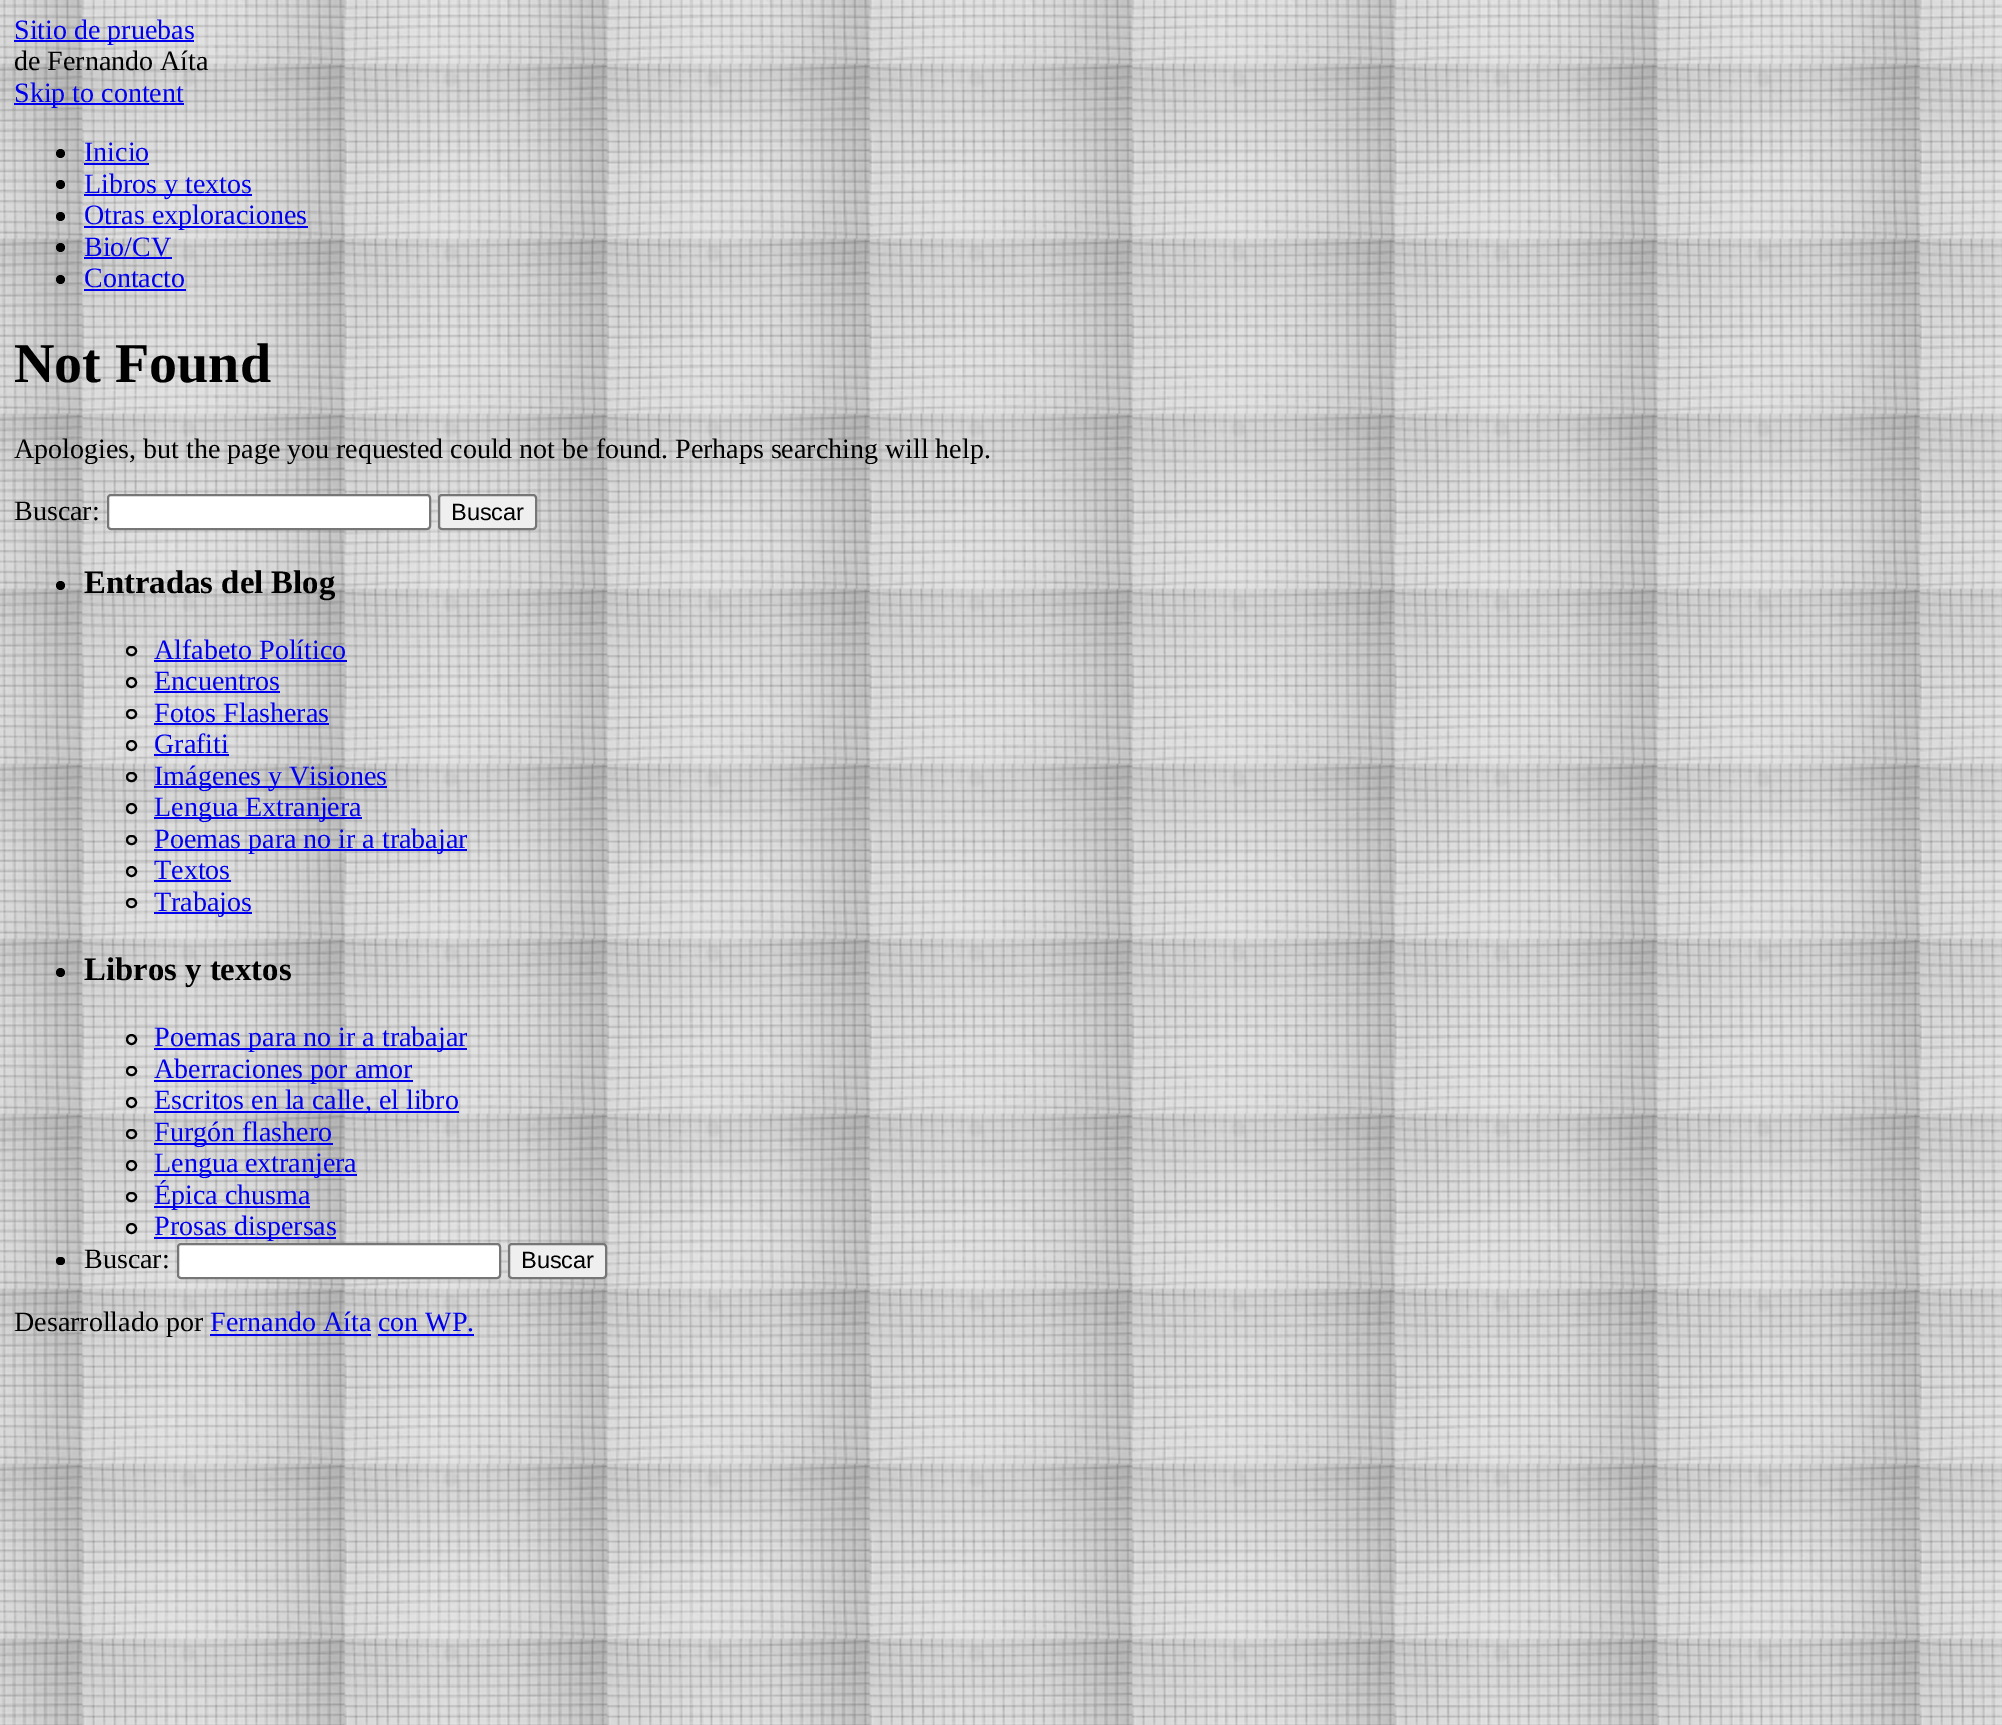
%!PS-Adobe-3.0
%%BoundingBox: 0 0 2002 1725
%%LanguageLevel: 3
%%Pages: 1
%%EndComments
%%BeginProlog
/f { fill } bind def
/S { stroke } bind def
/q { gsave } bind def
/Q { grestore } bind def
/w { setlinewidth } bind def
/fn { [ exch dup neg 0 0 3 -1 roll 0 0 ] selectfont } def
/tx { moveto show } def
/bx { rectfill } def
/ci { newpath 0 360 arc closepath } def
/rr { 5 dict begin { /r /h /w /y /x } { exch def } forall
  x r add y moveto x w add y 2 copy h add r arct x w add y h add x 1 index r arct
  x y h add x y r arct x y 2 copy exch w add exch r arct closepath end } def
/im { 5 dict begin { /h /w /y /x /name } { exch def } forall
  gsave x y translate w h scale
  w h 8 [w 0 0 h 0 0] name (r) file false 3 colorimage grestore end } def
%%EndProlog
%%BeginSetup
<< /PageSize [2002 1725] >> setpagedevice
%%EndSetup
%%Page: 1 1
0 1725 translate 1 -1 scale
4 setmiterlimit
1 setgray
0 0 2002 1725 bx
(image0.raw) 0 0 2002 1725 im
0 0 0.933 setrgbcolor
14 40 180 2 bx
/LiberationSerif-Regular 28 fn
(Sitio de pruebas) 14 39 tx
0 setgray
(de Fernando Aíta) 14 70 tx
0 0 0.933 setrgbcolor
14 103 170 2 bx
(Skip to content) 14 102 tx
0 setgray
60.5 153.5 4.5 ci f
0 0 0.933 setrgbcolor
(Inicio) 84 161 tx
84 163 65 2 bx
0 setgray
60.5 184.5 4.5 ci f
0 0 0.933 setrgbcolor
84 194 168 2 bx
(Libros y textos) 84 193 tx
0 setgray
60.5 216.5 4.5 ci f
0 0 0.933 setrgbcolor
84 226 224 2 bx
(Otras exploraciones) 84 224 tx
0 setgray
60.5 247.5 4.5 ci f
0 0 0.933 setrgbcolor
(Bio/CV) 84 256 tx
84 257 88 2 bx
0 setgray
60.5 279.5 4.5 ci f
0 0 0.933 setrgbcolor
(Contacto) 84 287 tx
84 289 102 2 bx
/LiberationSerif-Bold 56 fn
0 setgray
(Not Found) 14 382 tx
/LiberationSerif-Regular 28 fn
(Apologies, but the page you requested could not be found. Perhaps searching will help.) 14 458 tx
(Buscar:) 14 520 tx
1 setgray
108 495 322 34 3 rr q f Q
0.463 setgray
2 w
S
0.937 setgray
439 495 97 34 3 rr q f Q
0.463 setgray
S
/LiberationSans-Regular 23.5 fn
0 setgray
(Buscar) 451 520 tx
60.5 585.5 4.5 ci f
/LiberationSerif-Bold 32.75 fn
(Entradas del Blog) 84 593 tx
127 647 9 8 4 rr S
/LiberationSerif-Regular 28 fn
0 0 0.933 setrgbcolor
(Alfabeto Político) 154 659 tx
154 660 193 2 bx
0 setgray
131.5 682.5 4.5 ci S
0 0 0.933 setrgbcolor
(Encuentros) 154 690 tx
154 691 126 2 bx
0 setgray
127 710 9 8 4 rr S
0 0 0.933 setrgbcolor
(Fotos Flasheras) 154 722 tx
154 723 175 2 bx
0 setgray
131.5 745.5 4.5 ci S
0 0 0.933 setrgbcolor
(Grafiti) 154 753 tx
154 754 75 2 bx
0 setgray
127 773 9 8 4 rr S
0 0 0.933 setrgbcolor
154 786 233 2 bx
(Imágenes y Visiones) 154 785 tx
0 setgray
131.5 808.5 4.5 ci S
0 0 0.933 setrgbcolor
154 817 208 2 bx
(Lengua Extranjera) 154 816 tx
0 setgray
127 836 9 8 4 rr S
0 0 0.933 setrgbcolor
154 849 313 2 bx
(Poemas para no ir a trabajar) 154 848 tx
0 setgray
131.5 871.5 4.5 ci S
0 0 0.933 setrgbcolor
(Textos) 154 879 tx
154 880 77 2 bx
0 setgray
127 899 9 8 4 rr S
0 0 0.933 setrgbcolor
154 912 98 2 bx
(Trabajos) 154 911 tx
0 setgray
60.5 972.5 4.5 ci f
/LiberationSerif-Bold 32.75 fn
(Libros y textos) 84 980 tx
131.5 1039.5 4.5 ci S
0 0 0.933 setrgbcolor
154 1048 313 2 bx
/LiberationSerif-Regular 28 fn
(Poemas para no ir a trabajar) 154 1046 tx
0 setgray
127 1067 9 8 4 rr S
0 0 0.933 setrgbcolor
154 1080 259 2 bx
(Aberraciones por amor) 154 1078 tx
0 setgray
131.5 1102.5 4.5 ci S
0 0 0.933 setrgbcolor
154 1111 305 2 bx
(Escritos en la calle, el libro) 154 1109 tx
0 setgray
127 1130 9 8 4 rr S
0 0 0.933 setrgbcolor
154 1143 179 2 bx
(Furgón flashero) 154 1141 tx
0 setgray
131.5 1165.5 4.5 ci S
0 0 0.933 setrgbcolor
154 1174 203 2 bx
(Lengua extranjera) 154 1172 tx
0 setgray
127 1193 9 8 4 rr S
0 0 0.933 setrgbcolor
154 1206 156 2 bx
(Épica chusma) 154 1204 tx
0 setgray
131.5 1228.5 4.5 ci S
0 0 0.933 setrgbcolor
154 1237 182 2 bx
(Prosas dispersas) 154 1235 tx
0 setgray
56 1257 9 8 4 rr f
(Buscar:) 84 1268 tx
1 setgray
178 1244 322 34 3 rr q f Q
0.463 setgray
S
0.937 setgray
509 1244 97 34 3 rr q f Q
0.463 setgray
S
/LiberationSans-Regular 23.5 fn
0 setgray
(Buscar) 521 1268 tx
/LiberationSerif-Regular 28 fn
(Desarrollado por) 14 1331 tx
0 0 0.933 setrgbcolor
(Fernando Aíta con WP.) 210 1331 tx
210 1334 161 2 bx
378 1334 96 2 bx
showpage
%%EOF
